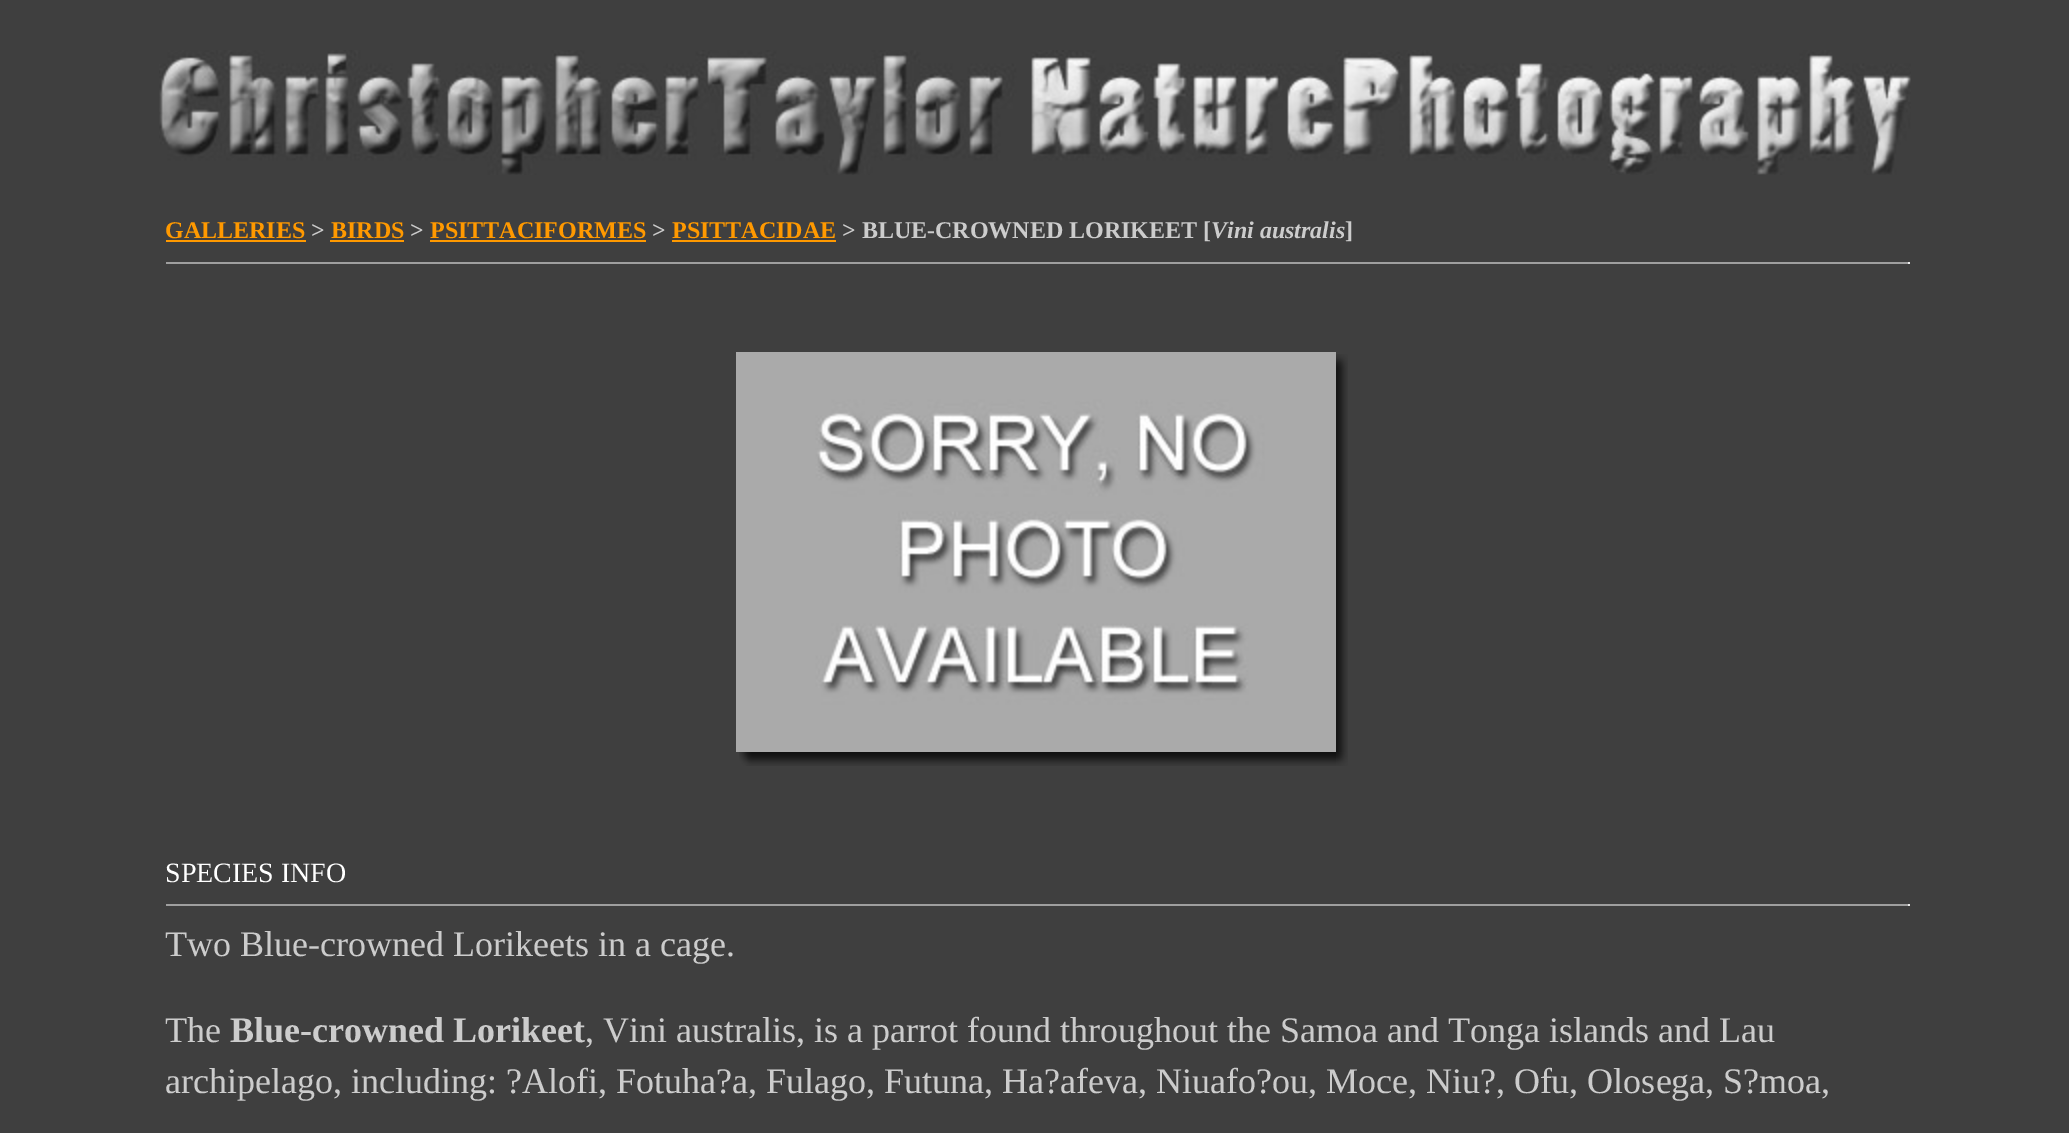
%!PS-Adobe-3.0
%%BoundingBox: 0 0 2069 1133
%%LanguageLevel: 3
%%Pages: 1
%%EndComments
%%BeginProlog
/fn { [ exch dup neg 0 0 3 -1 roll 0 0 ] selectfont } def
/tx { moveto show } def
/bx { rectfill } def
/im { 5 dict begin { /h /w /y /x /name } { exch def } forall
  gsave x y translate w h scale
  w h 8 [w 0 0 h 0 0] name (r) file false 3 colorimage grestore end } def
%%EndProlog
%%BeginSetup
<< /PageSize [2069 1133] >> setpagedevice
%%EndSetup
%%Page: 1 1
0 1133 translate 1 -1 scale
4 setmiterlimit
0.247 setgray
0 0 2069 1133 bx
(image0.raw) 159 50 1752 125 im
/LiberationSerif-Bold 24 fn
1 0.6 0 setrgbcolor
(GALLERIES) 165 238 tx
166 240 140 2 bx
0.8 setgray
(>) 311 238 tx
1 0.6 0 setrgbcolor
(BIRDS) 331 238 tx
330 240 74 2 bx
0.8 setgray
(>) 410 238 tx
1 0.6 0 setrgbcolor
(PSITTACIFORMES) 430 238 tx
430 240 216 2 bx
0.8 setgray
(>) 652 238 tx
1 0.6 0 setrgbcolor
(PSITTACIDAE) 672 238 tx
672 240 164 2 bx
0.8 setgray
(> BLUE-CROWNED LORIKEET [) 842 238 tx
/LiberationSerif-BoldItalic 24 fn
(Vini australis) 1211 238 tx
/LiberationSerif-Bold 24 fn
(]) 1345 238 tx
0.624 setgray
166 262 1744 2 bx
0.933 setgray
1908 262 2 2 bx
(image1.raw) 736 352 600 400 im
(image2.raw) 1336 354 12 18 im
(image3.raw) 1336 372 12 380 im
(image4.raw) 739 752 17 14 im
(image5.raw) 756 752 580 14 im
(image6.raw) 1336 752 12 14 im
/LiberationSerif-Regular 28 fn
1 setgray
(SPECIES INFO) 165 882 tx
0.624 setgray
166 904 1744 2 bx
0.933 setgray
1908 904 2 2 bx
/LiberationSerif-Regular 36 fn
0.8 setgray
(Two Blue-crowned Lorikeets in a cage.) 165 956 tx
(The) 165 1042 tx
/LiberationSerif-Bold 36 fn
(Blue-crowned Lorikeet) 230 1042 tx
/LiberationSerif-Regular 36 fn
(, Vini australis, is a parrot found throughout the Samoa and Tonga islands and Lau) 585 1042 tx
(archipelago, including: ?Alofi, Fotuha?a, Fulago, Futuna, Ha?afeva, Niuafo?ou, Moce, Niu?, Ofu, Olosega, S?moa,) 165 1093 tx
showpage
%%EOF
